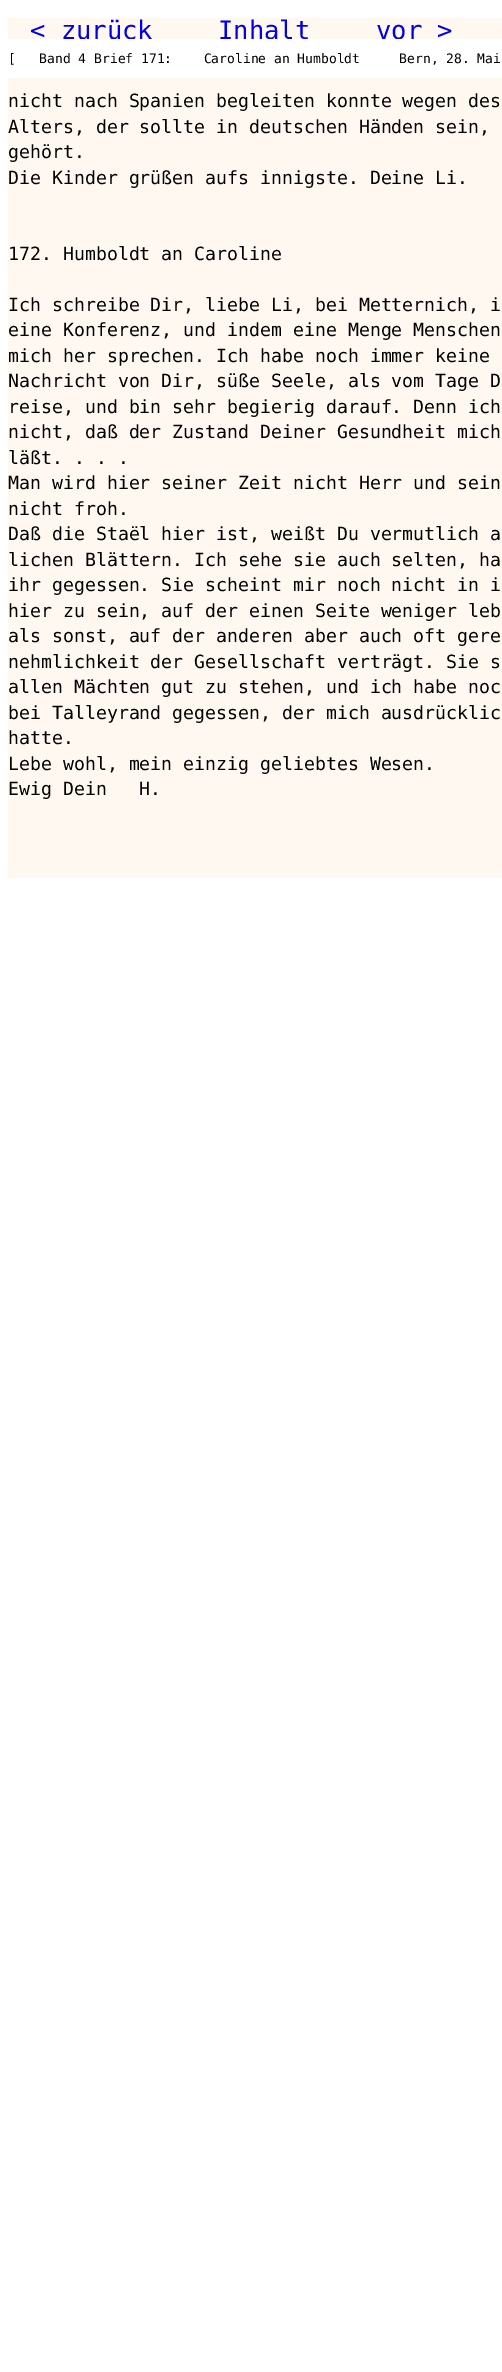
%!PS-Adobe-3.0
%%BoundingBox: 0 0 502 2372
%%LanguageLevel: 3
%%Pages: 1
%%EndComments
%%BeginProlog
/fn { [ exch dup neg 0 0 3 -1 roll 0 0 ] selectfont } def
/tx { moveto show } def
/bx { rectfill } def
%%EndProlog
%%BeginSetup
<< /PageSize [502 2372] >> setpagedevice
%%EndSetup
%%Page: 1 1
0 2372 translate 1 -1 scale
4 setmiterlimit
1 setgray
0 0 502 2372 bx
1 0.973 0.941 setrgbcolor
8 18 494 21 bx
/DejaVuSansMono-Regular 25.5 fn
0 0 0.933 setrgbcolor
(< zurück) 30 39 tx
(Inhalt) 218 39 tx
(vor >) 376 39 tx
1 setgray
80 39 321 1 bx
/DejaVuSansMono-Regular 13 fn
0 setgray
([   Band 4 Brief 171:    Caroline an Humboldt     Bern, 28. Mai) 8 63 tx
1 0.973 0.941 setrgbcolor
8 78 494 800 bx
/DejaVuSansMono-Regular 18.2 fn
0 setgray
(nicht nach Spanien begleiten konnte wegen des) 8 107 tx
(Alters, der sollte in deutschen Händen sein,) 8 133 tx
(gehört.) 8 158 tx
(Die Kinder grüßen aufs innigste. Deine Li.) 8 184 tx
(172. Humboldt an Caroline) 8 260 tx
(Ich schreibe Dir, liebe Li, bei Metternich, i) 8 311 tx
(eine Konferenz, und indem eine Menge Menschen) 8 336 tx
(mich her sprechen. Ich habe noch immer keine) 8 362 tx
(Nachricht von Dir, süße Seele, als vom Tage D) 8 387 tx
(reise, und bin sehr begierig darauf. Denn ich) 8 413 tx
(nicht, daß der Zustand Deiner Gesundheit mich) 8 438 tx
(läßt. . . .) 8 464 tx
(Man wird hier seiner Zeit nicht Herr und sein) 8 489 tx
(nicht froh.) 8 515 tx
(Daß die Staël hier ist, weißt Du vermutlich a) 8 540 tx
(lichen Blättern. Ich sehe sie auch selten, ha) 8 566 tx
(ihr gegessen. Sie scheint mir noch nicht in i) 8 591 tx
(hier zu sein, auf der einen Seite weniger leb) 8 617 tx
(als sonst, auf der anderen aber auch oft gere) 8 642 tx
(nehmlichkeit der Gesellschaft verträgt. Sie s) 8 668 tx
(allen Mächten gut zu stehen, und ich habe noc) 8 693 tx
(bei Talleyrand gegessen, der mich ausdrücklic) 8 719 tx
(hatte.) 8 744 tx
(Lebe wohl, mein einzig geliebtes Wesen.) 8 770 tx
(Ewig Dein   H.) 8 795 tx
showpage
%%EOF
